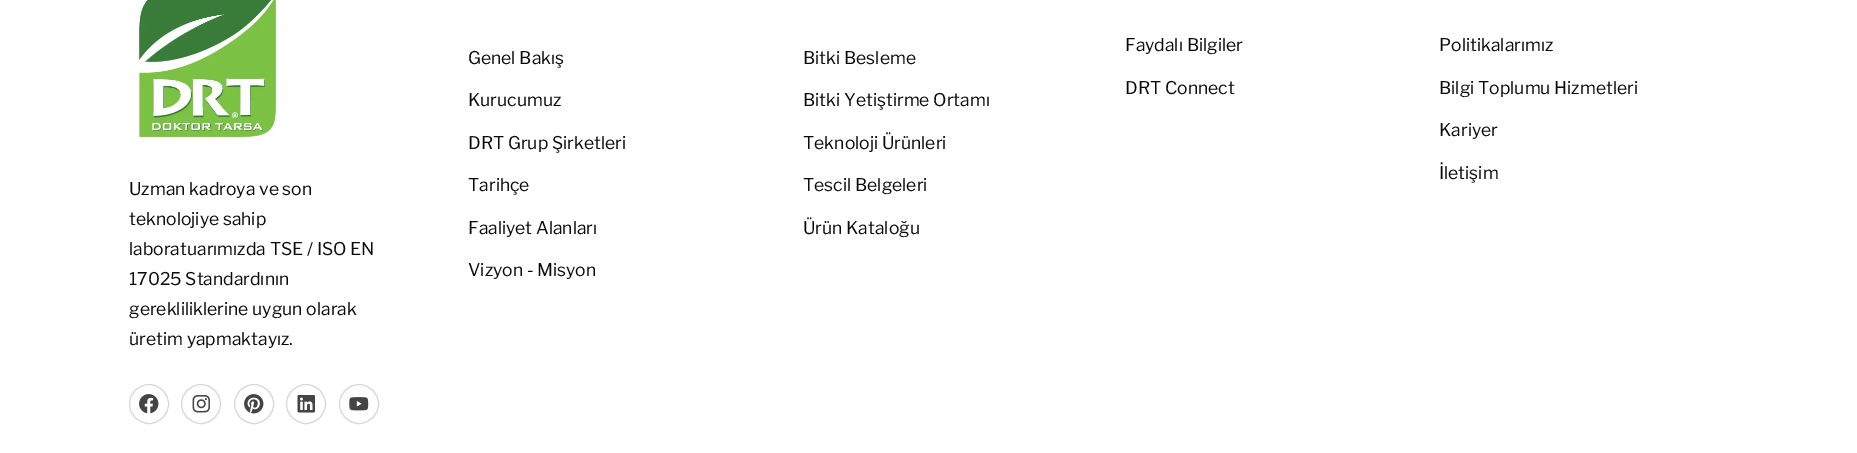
%!PS-Adobe-3.0
%%BoundingBox: 0 0 1857 453
%%LanguageLevel: 3
%%Pages: 1
%%EndComments
%%BeginProlog
/S { stroke } bind def
/fn { [ exch dup neg 0 0 3 -1 roll 0 0 ] selectfont } def
/tx { moveto show } def
/bx { rectfill } def
/ci { newpath 0 360 arc closepath } def
/im { 5 dict begin { /h /w /y /x /name } { exch def } forall
  gsave x y translate w h scale
  w h 8 [w 0 0 h 0 0] name (r) file false 3 colorimage grestore end } def
%%EndProlog
%%BeginSetup
<< /PageSize [1857 453] >> setpagedevice
%%EndSetup
%%Page: 1 1
0 453 translate 1 -1 scale
4 setmiterlimit
1 setgray
0 0 1857 453 bx
/LibreFranklin-Regular 17.5 fn
0.039 setgray
(Genel Bakış) 468 64 tx
(Kurucumuz) 468 106 tx
(DRT Grup Şirketleri) 468 149 tx
(Tarihçe) 468 191 tx
(Faaliyet Alanları) 468 234 tx
(Vizyon - Misyon) 468 276 tx
(Bitki Besleme) 803 64 tx
(Bitki Yetiştirme Ortamı) 803 106 tx
(Teknoloji Ürünleri) 803 149 tx
(Tescil Belgeleri) 803 191 tx
(Ürün Kataloğu) 803 234 tx
(Faydalı Bilgiler) 1125 51 tx
(DRT Connect) 1125 94 tx
(Politikalarımız) 1439 51 tx
(Bilgi Toplumu Hizmetleri) 1439 94 tx
(Kariyer) 1439 136 tx
(İletişim) 1439 179 tx
(image0.raw) 137 0 141 139 im
(Uzman kadroya ve son) 129 195 tx
(teknolojiye sahip) 129 225 tx
(laboratuarımızda TSE / ISO EN) 129 255 tx
(17025 Standardının) 129 285 tx
(gerekliliklerine uygun olarak) 129 315 tx
(üretim yapmaktayız.) 129 345 tx
0.843 setgray
149 404 19.5 ci S
(image1.raw) 139 394 20 20 im
201 404 19.5 ci S
(image2.raw) 192 395 18 18 im
254 404 19.5 ci S
(image3.raw) 244 394 20 20 im
306 404 19.5 ci S
(image4.raw) 297 395 18 18 im
359 404 19.5 ci S
(image5.raw) 349 397 20 14 im
showpage
%%EOF
